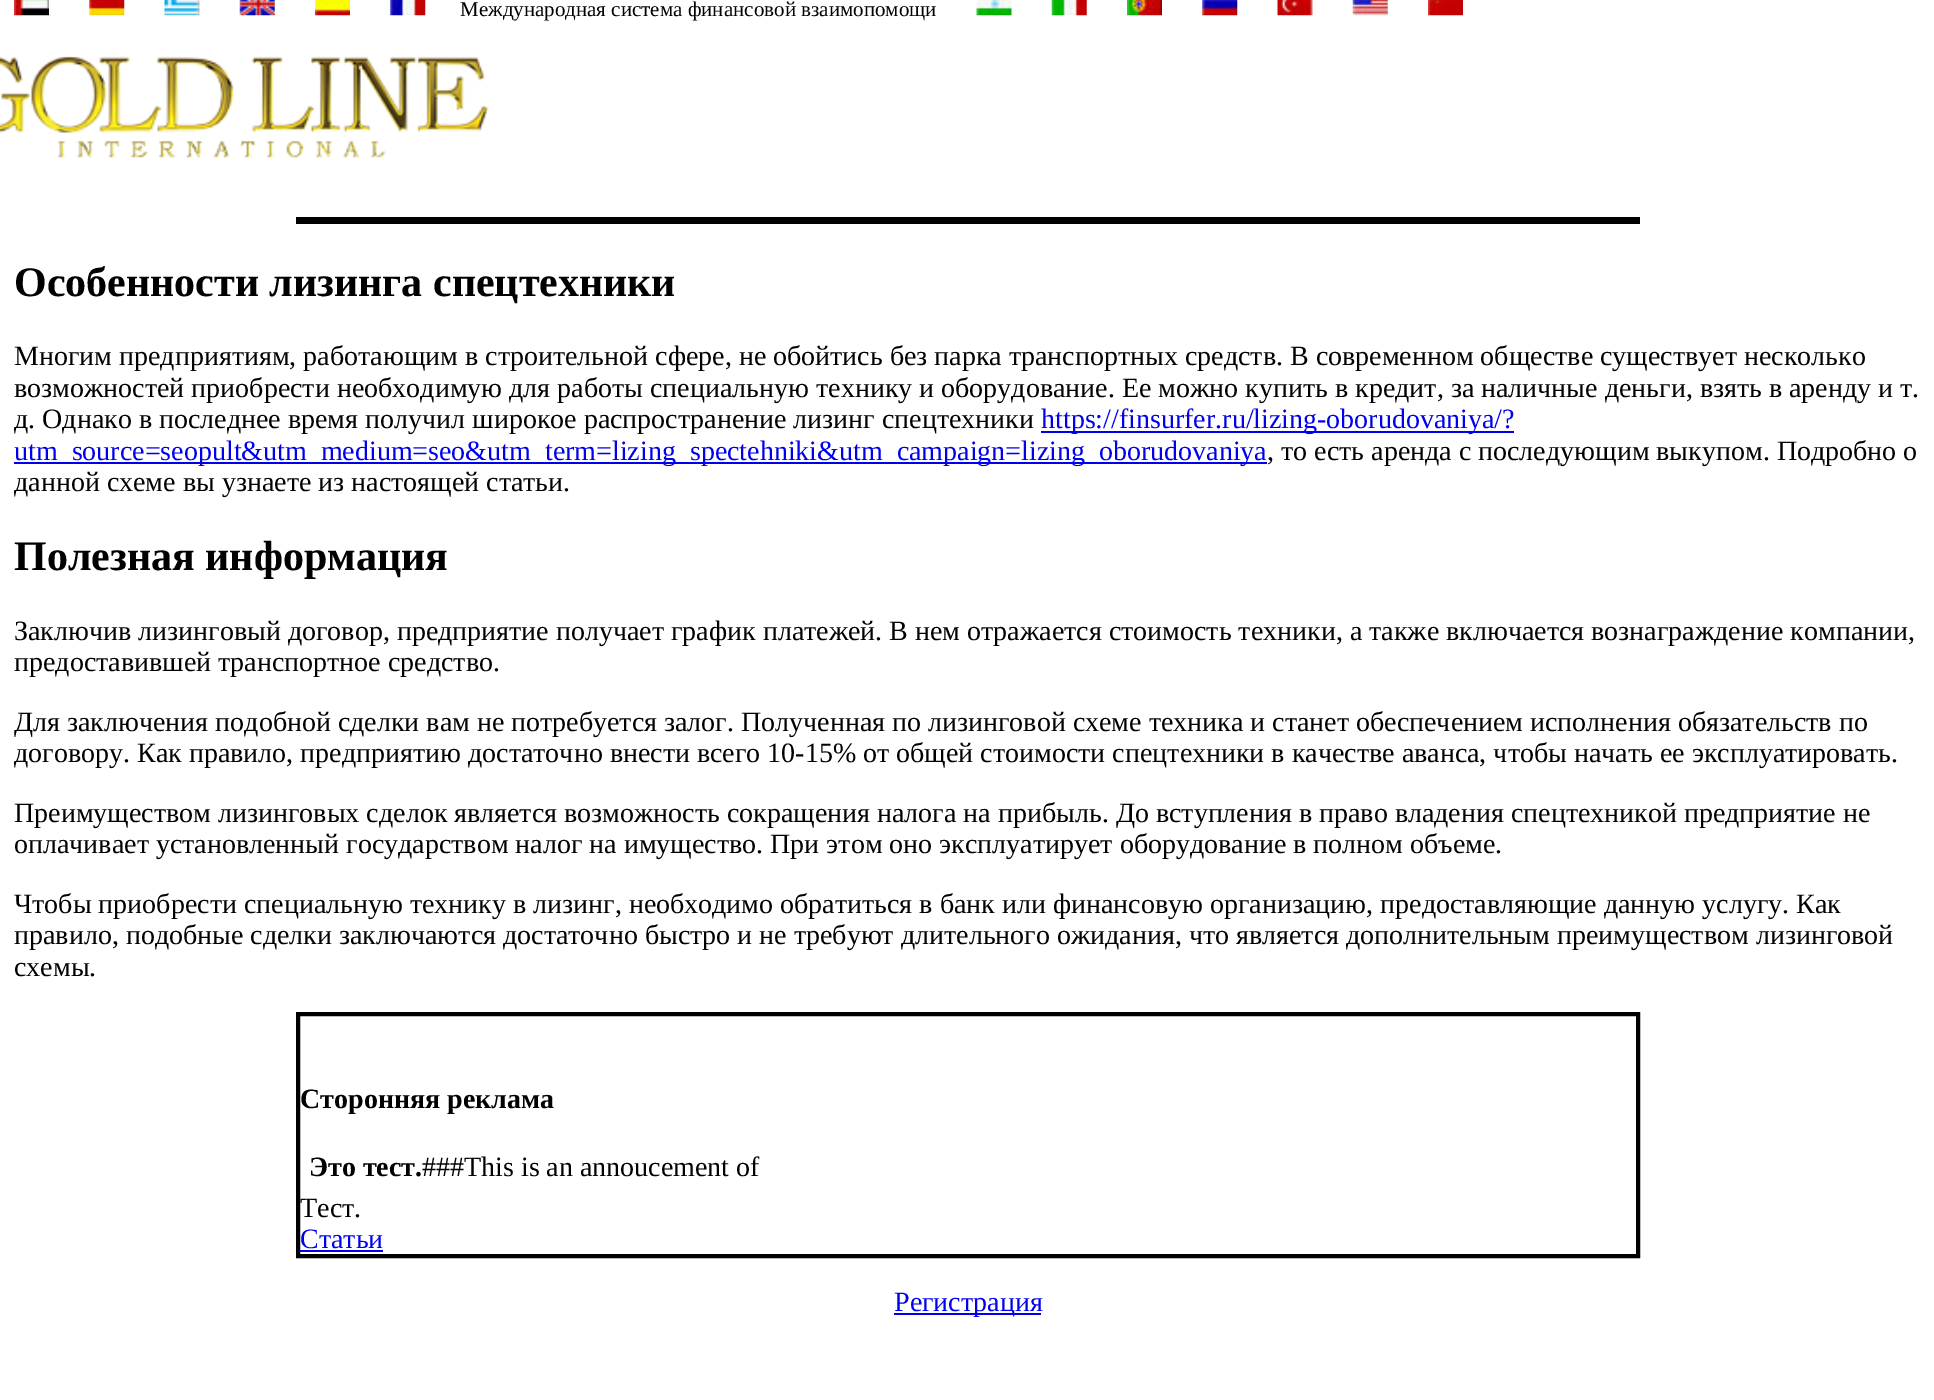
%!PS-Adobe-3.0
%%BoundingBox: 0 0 1934 1400
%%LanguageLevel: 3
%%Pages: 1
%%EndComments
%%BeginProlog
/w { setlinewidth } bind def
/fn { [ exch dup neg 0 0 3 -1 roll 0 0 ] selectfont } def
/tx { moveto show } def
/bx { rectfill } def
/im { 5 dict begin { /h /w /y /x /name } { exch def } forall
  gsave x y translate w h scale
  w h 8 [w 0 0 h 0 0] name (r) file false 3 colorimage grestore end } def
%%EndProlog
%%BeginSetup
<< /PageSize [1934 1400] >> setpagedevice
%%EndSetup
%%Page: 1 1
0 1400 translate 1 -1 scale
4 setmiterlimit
1 setgray
0 0 1934 1400 bx
(image0.raw) 14 0 35 16 im
(image1.raw) 89 0 36 16 im
(image2.raw) 164 0 36 16 im
(image3.raw) 239 0 36 16 im
(image4.raw) 315 0 35 16 im
(image5.raw) 390 0 36 16 im
/LiberationSerif-Regular 21 fn
0 setgray
(Международная система финансовой взаимопомощи) 460 16 tx
(image6.raw) 976 0 36 16 im
(image7.raw) 1051 0 36 16 im
(image8.raw) 1127 0 35 16 im
(image9.raw) 1202 0 36 16 im
(image10.raw) 1277 0 36 16 im
(image11.raw) 1352 0 36 16 im
(image12.raw) 1428 0 35 16 im
(image13.raw) 0 56 489 102 im
296 217 1344 7 bx
/LiberationSerif-Bold 42 fn
(Особенности лизинга спецтехники) 14 296 tx
/LiberationSerif-Regular 28 fn
(Многим предприятиям, работающим в строительной сфере, не обойтись без парка транспортных средств. В современном обществе существует несколько) 14 365 tx
(возможностей приобрести необходимую для работы специальную технику и оборудование. Ее можно купить в кредит, за наличные деньги, взять в аренду и т.) 14 397 tx
(д. Однако в последнее время получил широкое распространение лизинг спецтехники) 14 428 tx
0 0 0.933 setrgbcolor
1041 431 473 2 bx
(https://finsurfer.ru/lizing-oborudovaniya/?) 1041 428 tx
14 462 1253 2 bx
(utm_source=seopult&utm_medium=seo&utm_term=lizing_spectehniki&utm_campaign=lizing_oborudovaniya) 14 460 tx
0 setgray
(, то есть аренда с последующим выкупом. Подробно о) 1267 460 tx
(данной схеме вы узнаете из настоящей статьи.) 14 491 tx
/LiberationSerif-Bold 42 fn
(Полезная информация) 14 570 tx
/LiberationSerif-Regular 28 fn
(Заключив лизинговый договор, предприятие получает график платежей. В нем отражается стоимость техники, а также включается вознаграждение компании,) 14 640 tx
(предоставившей транспортное средство.) 14 671 tx
(Для заключения подобной сделки вам не потребуется залог. Полученная по лизинговой схеме техника и станет обеспечением исполнения обязательств по) 14 731 tx
(договору. Как правило, предприятию достаточно внести всего 10-15% от общей стоимости спецтехники в качестве аванса, чтобы начать ее эксплуатировать.) 14 762 tx
(Преимуществом лизинговых сделок является возможность сокращения налога на прибыль. До вступления в право владения спецтехникой предприятие не) 14 822 tx
(оплачивает установленный государством налог на имущество. При этом оно эксплуатирует оборудование в полном объеме.) 14 853 tx
(Чтобы приобрести специальную технику в лизинг, необходимо обратиться в банк или финансовую организацию, предоставляющие данную услугу. Как) 14 913 tx
(правило, подобные сделки заключаются достаточно быстро и не требуют длительного ожидания, что является дополнительным преимуществом лизинговой) 14 944 tx
(схемы.) 14 976 tx
4 w
298 1014 1340 242 rectstroke
/LiberationSerif-Bold 28 fn
(Сторонняя реклама) 300 1108 tx
(Это тест.) 309 1176 tx
/LiberationSerif-Regular 28 fn
(###This is an annoucement of) 422 1176 tx
(Тест.) 300 1217 tx
0 0 0.933 setrgbcolor
(Статьи) 300 1248 tx
299 1250 84 2 bx
894 1313 147 2 bx
(Регистрация) 894 1311 tx
showpage
%%EOF
